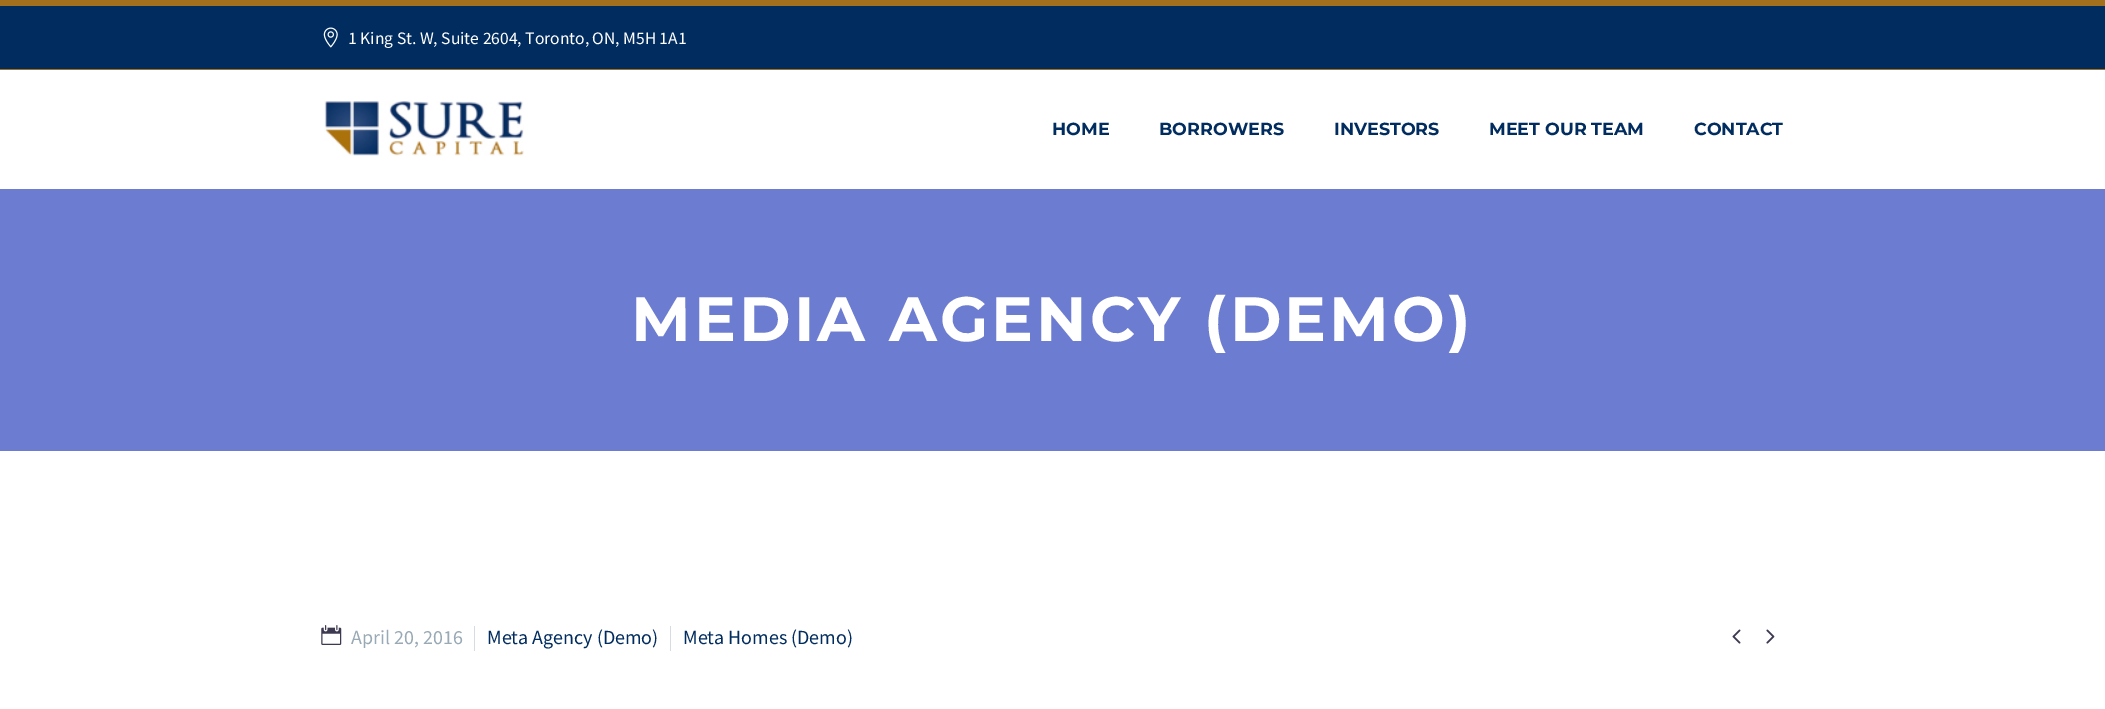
%!PS-Adobe-3.0
%%BoundingBox: 0 0 2105 709
%%LanguageLevel: 3
%%Pages: 1
%%EndComments
%%BeginProlog
/m { moveto } bind def
/fn { [ exch dup neg 0 0 3 -1 roll 0 0 ] selectfont } def
/tx { moveto show } def
/bx { rectfill } def
/im { 5 dict begin { /h /w /y /x /name } { exch def } forall
  gsave x y translate w h scale
  w h 8 [w 0 0 h 0 0] name (r) file false 3 colorimage grestore end } def
%%EndProlog
%%BeginSetup
<< /PageSize [2105 709] >> setpagedevice
%%EndSetup
%%Page: 1 1
0 709 translate 1 -1 scale
4 setmiterlimit
1 setgray
0 0 2105 709 bx
0.004 0.173 0.373 setrgbcolor
0 6 2105 63 bx
0.639 0.439 0.118 setrgbcolor
0 0 2105 6 bx
0 69 2105 1 bx
(image0.raw) 323 27 15 21 im
/SourceSansPro-Regular 17.5 fn
1 setgray
(1 King St. W, Suite 2604, Toronto, ON, M5H 1A1) 348 44 tx
(image1.raw) 324 101 200 55 im
/Montserrat-Bold 17.5 fn
0.004 0.173 0.373 setrgbcolor
(HOME) 1052 135 tx
(BORROWERS) 1159 135 tx
(INVESTORS) 1334 135 tx
(MEET OUR TEAM) 1489 135 tx
(CONTACT) 1694 135 tx
0.424 0.486 0.816 setrgbcolor
0 189 2105 262 bx
/Montserrat-Bold 62.5 fn
1 setgray
631 341 m 3.1 0 (MEDIA AGENCY \(DEMO\)) ashow
(image2.raw) 321 625 21 20 im
/SourceSansPro-Regular 20 fn
0.6 0.663 0.71 setrgbcolor
(April 20, 2016) 351 644 tx
0.831 0.871 0.882 setrgbcolor
474 626 1 25 bx
0.004 0.173 0.373 setrgbcolor
(Meta Agency \(Demo\)) 487 644 tx
0.831 0.871 0.882 setrgbcolor
670 626 1 25 bx
0.004 0.173 0.373 setrgbcolor
(Meta Homes \(Demo\)) 683 644 tx
(image3.raw) 1732 629 9 15 im
(image4.raw) 1766 629 9 15 im
showpage
%%EOF
